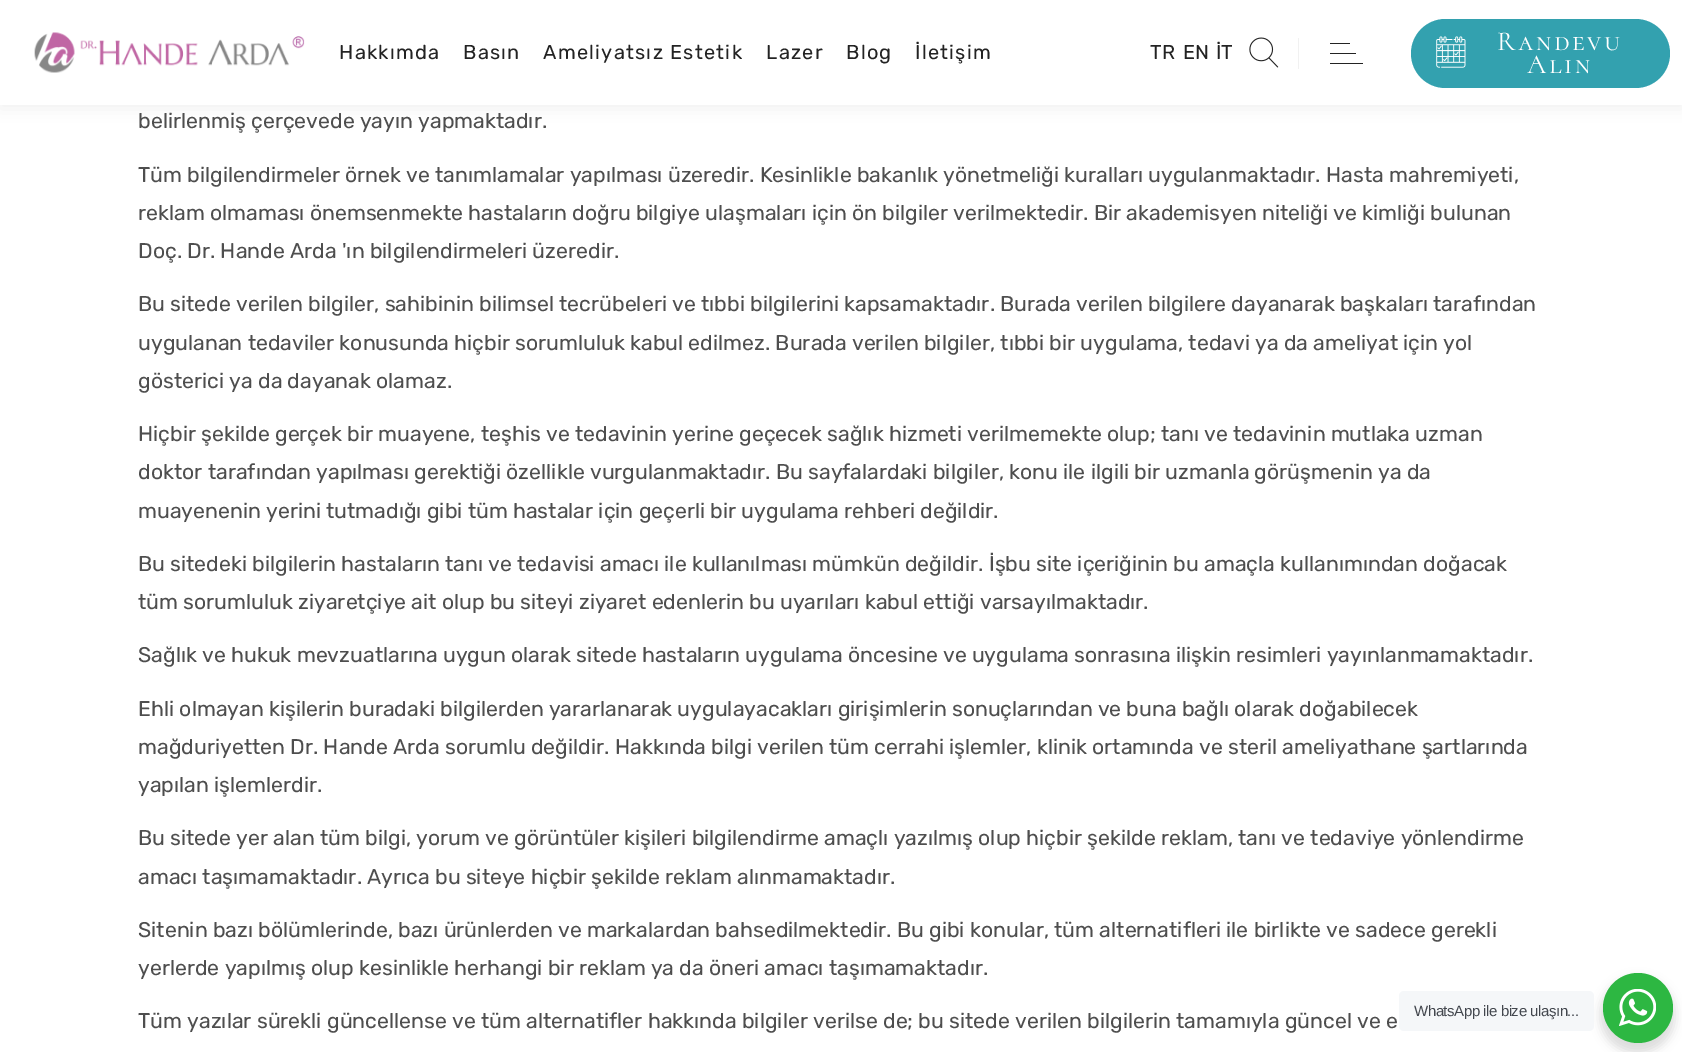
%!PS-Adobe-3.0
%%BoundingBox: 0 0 1682 1052
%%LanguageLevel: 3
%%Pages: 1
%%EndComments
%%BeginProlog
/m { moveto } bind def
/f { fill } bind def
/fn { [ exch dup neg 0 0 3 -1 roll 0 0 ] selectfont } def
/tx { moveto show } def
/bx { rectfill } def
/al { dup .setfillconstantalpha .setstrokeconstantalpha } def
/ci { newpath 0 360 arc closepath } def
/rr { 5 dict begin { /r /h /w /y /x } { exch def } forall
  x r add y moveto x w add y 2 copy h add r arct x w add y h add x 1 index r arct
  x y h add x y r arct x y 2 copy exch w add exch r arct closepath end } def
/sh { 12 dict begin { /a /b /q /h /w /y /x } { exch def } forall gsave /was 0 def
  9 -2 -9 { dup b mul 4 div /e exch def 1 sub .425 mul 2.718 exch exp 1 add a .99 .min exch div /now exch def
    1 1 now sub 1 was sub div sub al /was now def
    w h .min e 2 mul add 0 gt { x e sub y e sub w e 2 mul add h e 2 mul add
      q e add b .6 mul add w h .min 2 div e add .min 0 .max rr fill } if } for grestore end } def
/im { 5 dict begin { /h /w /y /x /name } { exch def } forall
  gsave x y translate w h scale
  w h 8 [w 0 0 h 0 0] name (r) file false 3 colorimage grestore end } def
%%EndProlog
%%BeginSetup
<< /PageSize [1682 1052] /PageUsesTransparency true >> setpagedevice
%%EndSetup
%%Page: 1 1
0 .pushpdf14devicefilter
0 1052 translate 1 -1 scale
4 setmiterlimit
1 setgray
0 0 1682 1052 bx
0 setgray
0 4 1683 105 0 8 0.05 sh
1 setgray
0 0 1682 105 bx
(image0.raw) 34 32 271 41 im
/Rubik-Regular 20 fn
0.137 setgray
339 59 m 1.25 0 (Hakkımda) ashow
463 59 m 1.25 0 (Basın) ashow
543 59 m 1.25 0 (Ameliyatsız Estetik) ashow
766 59 m 1.25 0 (Lazer) ashow
846 59 m 1.25 0 (Blog) ashow
915 59 m 1.25 0 (İletişim) ashow
(TR) 1150 59 tx
(EN) 1183 59 tx
(İT) 1216 59 tx
(image1.raw) 1249 37 30 31 im
0.945 setgray
1298 38 1 31 bx
0.137 setgray
1330 43 20 1 bx
1330 53 26 1 bx
1330 63 33 1 bx
0.2 0.631 0.686 setrgbcolor
1411 19 259 69 34.5 rr f
(image2.raw) 1436 36 30 32 im
/CormorantSC-Regular 27.5 fn
1 setgray
1497 50 m 2.5 0 (Randevu) ashow
1527 73 m 2.5 0 (Alın) ashow
/Rubik-Regular 21.25 fn
0.306 setgray
(belirlenmiş çerçevede yayın yapmaktadır.) 138 128 tx
(Tüm bilgilendirmeler örnek ve tanımlamalar yapılması üzeredir. Kesinlikle bakanlık yönetmeliği kuralları uygulanmaktadır. Hasta mahremiyeti,) 138 182 tx
(reklam olmaması önemsenmekte hastaların doğru bilgiye ulaşmaları için ön bilgiler verilmektedir. Bir akademisyen niteliği ve kimliği bulunan) 138 220 tx
(Doç. Dr. Hande Arda 'ın bilgilendirmeleri üzeredir.) 138 258 tx
(Bu sitede verilen bilgiler, sahibinin bilimsel tecrübeleri ve tıbbi bilgilerini kapsamaktadır. Burada verilen bilgilere dayanarak başkaları tarafından) 138 311 tx
(uygulanan tedaviler konusunda hiçbir sorumluluk kabul edilmez. Burada verilen bilgiler, tıbbi bir uygulama, tedavi ya da ameliyat için yol) 138 350 tx
(gösterici ya da dayanak olamaz.) 138 388 tx
(Hiçbir şekilde gerçek bir muayene, teşhis ve tedavinin yerine geçecek sağlık hizmeti verilmemekte olup; tanı ve tedavinin mutlaka uzman) 138 441 tx
(doktor tarafından yapılması gerektiği özellikle vurgulanmaktadır. Bu sayfalardaki bilgiler, konu ile ilgili bir uzmanla görüşmenin ya da) 138 479 tx
(muayenenin yerini tutmadığı gibi tüm hastalar için geçerli bir uygulama rehberi değildir.) 138 518 tx
(Bu sitedeki bilgilerin hastaların tanı ve tedavisi amacı ile kullanılması mümkün değildir. İşbu site içeriğinin bu amaçla kullanımından doğacak) 138 571 tx
(tüm sorumluluk ziyaretçiye ait olup bu siteyi ziyaret edenlerin bu uyarıları kabul ettiği varsayılmaktadır.) 138 609 tx
(Sağlık ve hukuk mevzuatlarına uygun olarak sitede hastaların uygulama öncesine ve uygulama sonrasına ilişkin resimleri yayınlanmamaktadır.) 138 662 tx
(Ehli olmayan kişilerin buradaki bilgilerden yararlanarak uygulayacakları girişimlerin sonuçlarından ve buna bağlı olarak doğabilecek) 138 716 tx
(mağduriyetten Dr. Hande Arda sorumlu değildir. Hakkında bilgi verilen tüm cerrahi işlemler, klinik ortamında ve steril ameliyathane şartlarında) 138 754 tx
(yapılan işlemlerdir.) 138 792 tx
(Bu sitede yer alan tüm bilgi, yorum ve görüntüler kişileri bilgilendirme amaçlı yazılmış olup hiçbir şekilde reklam, tanı ve tedaviye yönlendirme) 138 845 tx
(amacı taşımamaktadır. Ayrıca bu siteye hiçbir şekilde reklam alınmamaktadır.) 138 884 tx
(Sitenin bazı bölümlerinde, bazı ürünlerden ve markalardan bahsedilmektedir. Bu gibi konular, tüm alternatifleri ile birlikte ve sadece gerekli) 138 937 tx
(yerlerde yapılmış olup kesinlikle herhangi bir reklam ya da öneri amacı taşımamaktadır.) 138 975 tx
(Tüm yazılar sürekli güncellense ve tüm alternatifler hakkında bilgiler verilse de; bu sitede verilen bilgilerin tamamıyla güncel ve e) 138 1028 tx
0 setgray
1600 978 75 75 37.5 5 0.14 sh
0.961 0.969 0.976 setrgbcolor
1399 991 195 40 5 rr f
/LiberationSans-Regular 15 fn
0.263 0.278 0.306 setrgbcolor
1414 1016 m -0.45 0 (WhatsApp ile bize ulaşın...) ashow
0.176 0.718 0.259 setrgbcolor
1638 1008 35 ci f
(image3.raw) 1619 989 37 37 im
.poppdf14devicefilter showpage
%%EOF
